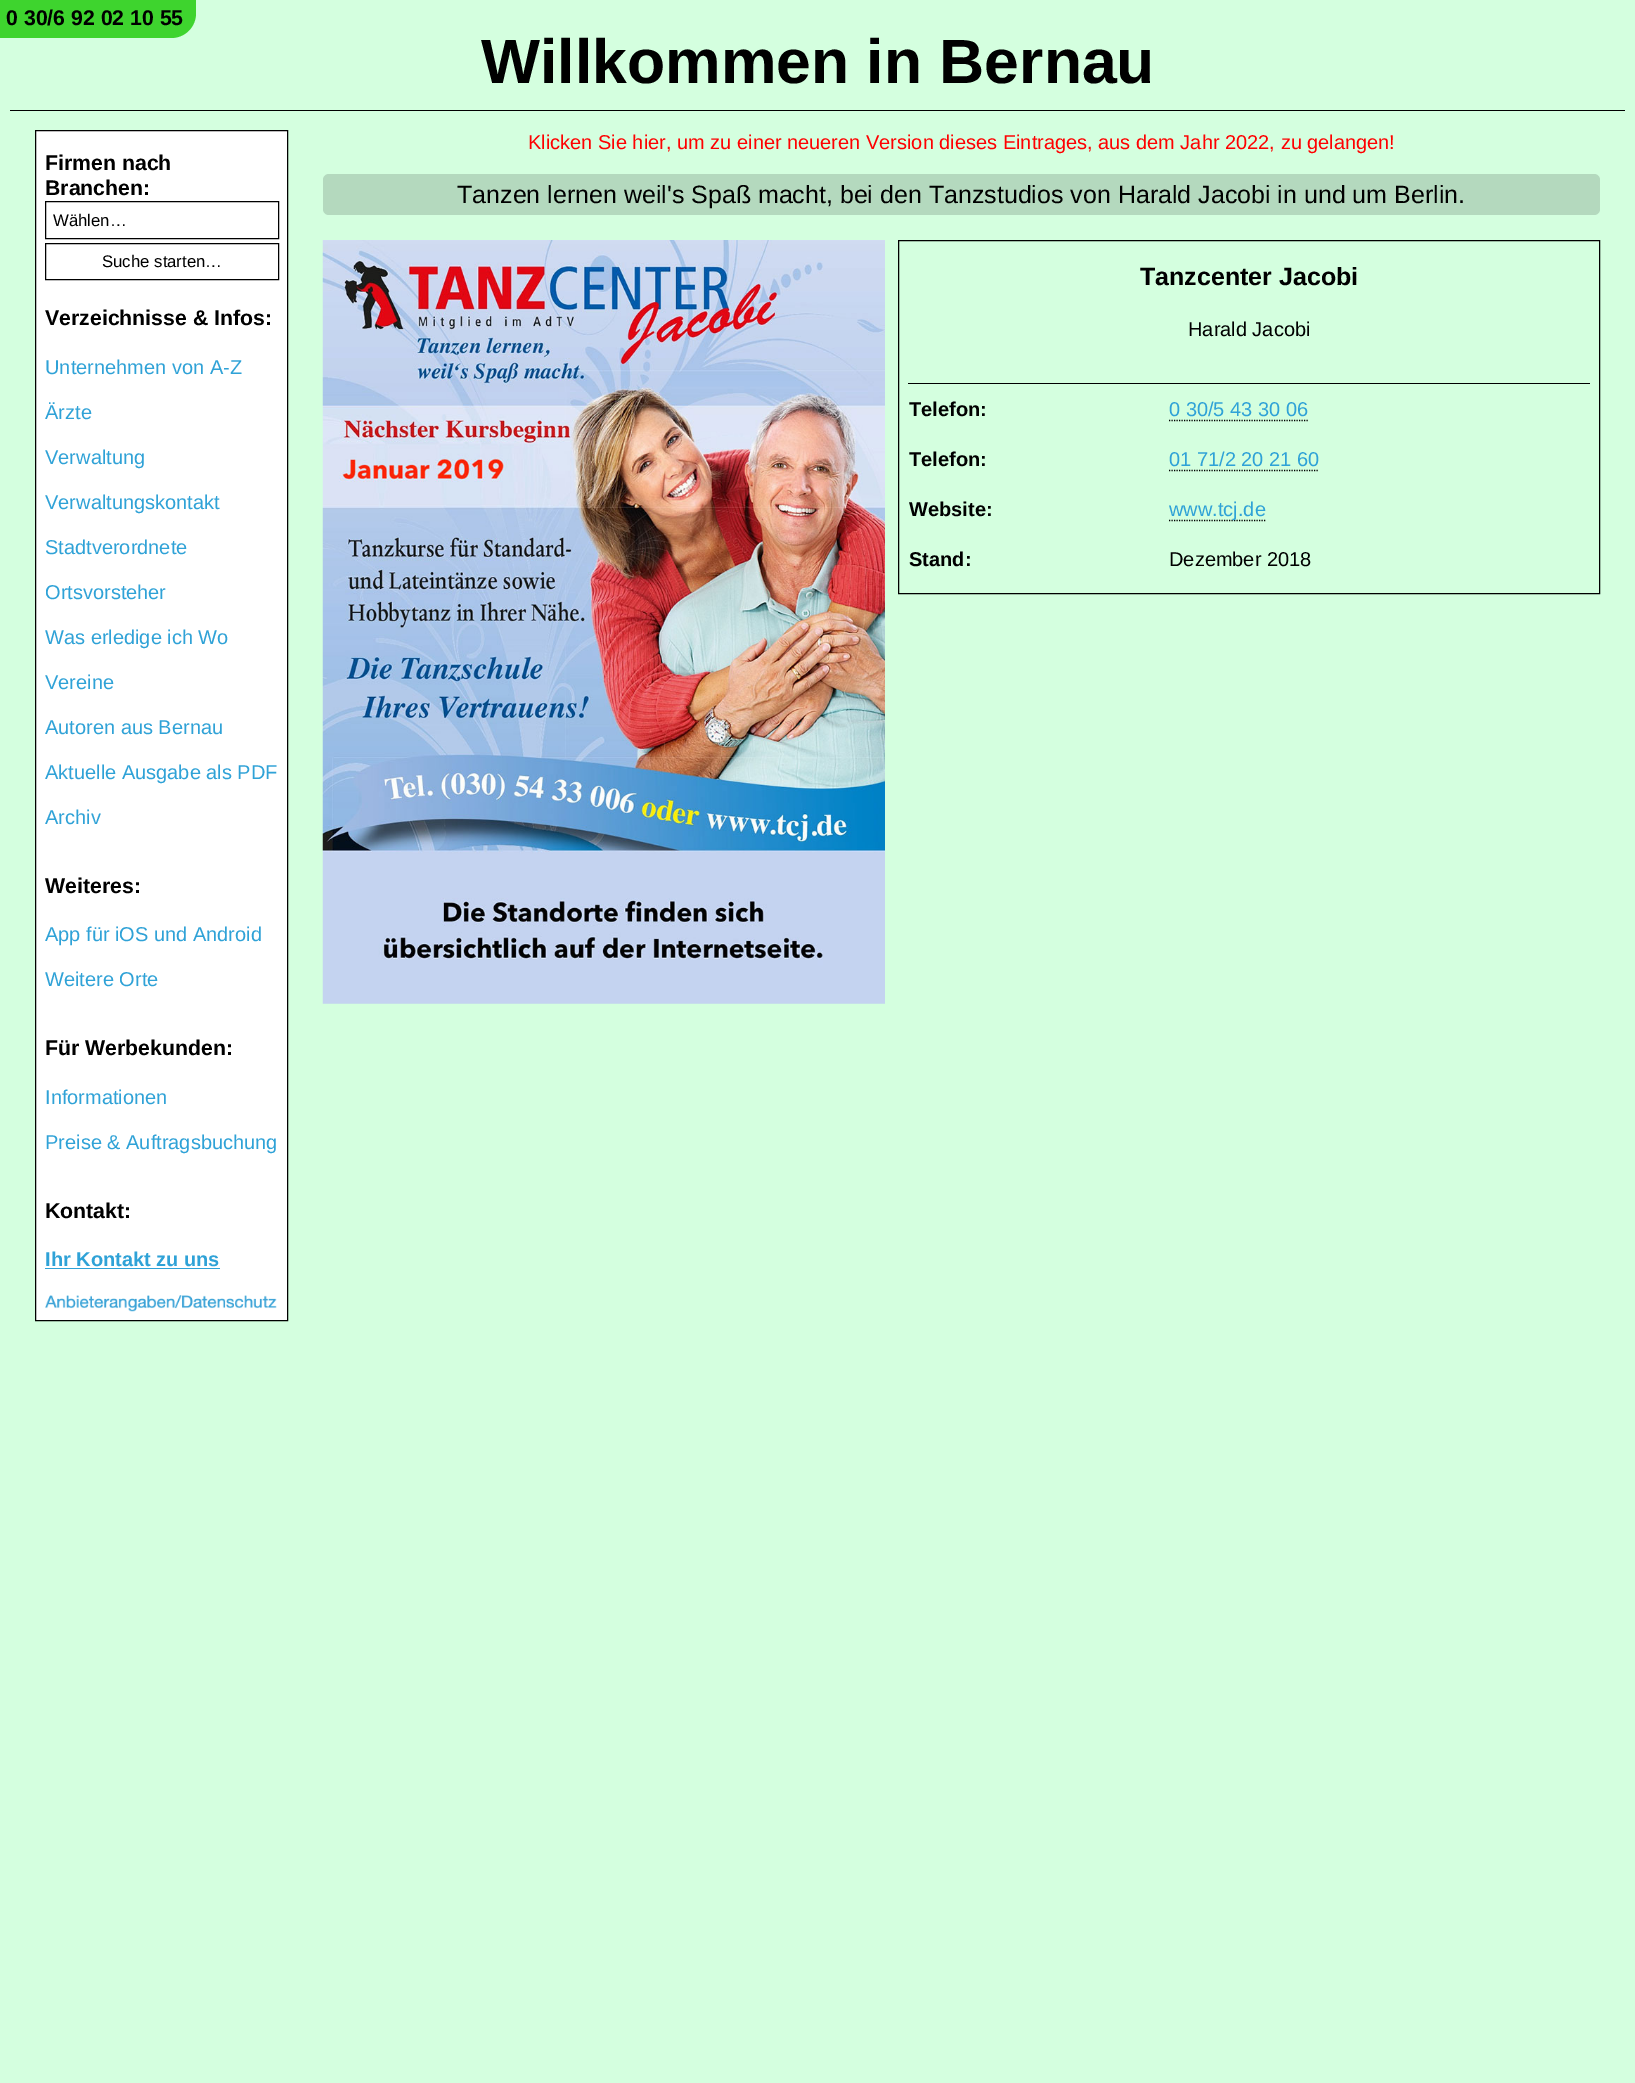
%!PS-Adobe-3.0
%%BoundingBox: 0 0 1635 2083
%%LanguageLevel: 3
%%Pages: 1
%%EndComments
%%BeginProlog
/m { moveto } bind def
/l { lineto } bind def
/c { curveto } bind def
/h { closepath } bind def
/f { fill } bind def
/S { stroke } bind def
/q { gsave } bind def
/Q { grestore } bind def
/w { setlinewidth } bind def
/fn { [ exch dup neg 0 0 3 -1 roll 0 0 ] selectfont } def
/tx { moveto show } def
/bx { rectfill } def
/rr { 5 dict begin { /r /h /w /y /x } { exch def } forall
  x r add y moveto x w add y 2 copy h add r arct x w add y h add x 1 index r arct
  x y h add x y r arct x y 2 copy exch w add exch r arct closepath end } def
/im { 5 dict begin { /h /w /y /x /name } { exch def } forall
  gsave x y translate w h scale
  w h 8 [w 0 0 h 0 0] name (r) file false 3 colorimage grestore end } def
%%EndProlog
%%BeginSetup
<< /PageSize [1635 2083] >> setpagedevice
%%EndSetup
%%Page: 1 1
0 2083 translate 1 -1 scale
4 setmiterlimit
0.831 1 0.875 setrgbcolor
0 0 1635 2083 bx
0.243 0.831 0.18 setrgbcolor
0 0 m 196 0 l 196 13 l 196 27 185 38 171 38 c 0 38 l h f
/LiberationSans-Bold 21.25 fn
0 setgray
(0 30/6 92 02 10 55) 6 25 tx
10 110 1615 1 bx
/LiberationSans-Bold 62.5 fn
(Willkommen in Bernau) 481 83 tx
1 setgray
35.5 130.5 m 287.5 130.5 l 287.5 1320.5 l 35.5 1320.5 l h q f Q
0 setgray
S
/LiberationSans-Bold 21.25 fn
(Firmen nach) 45 170 tx
(Branchen:) 45 195 tx
45.5 201.5 233 37 rectstroke
/LiberationSans-Regular 16.75 fn
(Wählen…) 53 226 tx
45.5 243.5 233 36 rectstroke
(Suche starten…) 102 267 tx
/LiberationSans-Bold 21.25 fn
(Verzeichnisse & Infos:) 45 325 tx
/LiberationSans-Regular 20 fn
0.184 0.635 0.843 setrgbcolor
(Unternehmen von A-Z) 45 374 tx
(Ärzte) 45 419 tx
(Verwaltung) 45 464 tx
(Verwaltungskontakt) 45 509 tx
(Stadtverordnete) 45 554 tx
(Ortsvorsteher) 45 599 tx
(Was erledige ich Wo) 45 644 tx
(Vereine) 45 689 tx
(Autoren aus Bernau) 45 734 tx
(Aktuelle Ausgabe als PDF) 45 779 tx
(Archiv) 45 824 tx
/LiberationSans-Bold 21.25 fn
0 setgray
(Weiteres:) 45 893 tx
/LiberationSans-Regular 20 fn
0.184 0.635 0.843 setrgbcolor
(App für iOS und Android) 45 941 tx
(Weitere Orte) 45 986 tx
/LiberationSans-Bold 21.25 fn
0 setgray
(Für Werbekunden:) 45 1055 tx
/LiberationSans-Regular 20 fn
0.184 0.635 0.843 setrgbcolor
(Informationen) 45 1104 tx
(Preise & Auftragsbuchung) 45 1149 tx
/LiberationSans-Bold 21.25 fn
0 setgray
(Kontakt:) 45 1218 tx
/LiberationSans-Bold 20 fn
0.184 0.635 0.843 setrgbcolor
(Ihr Kontakt zu uns) 45 1266 tx
45 1268 175 1 bx
(image0.raw) 45 1295 232 17 im
/LiberationSans-Regular 20 fn
1 0 0 setrgbcolor
(Klicken Sie hier, um zu einer neueren Version dieses Eintrages, aus dem Jahr 2022, zu gelangen!) 528 149 tx
0.706 0.851 0.745 setrgbcolor
323 174 1277 41 6 rr f
/LiberationSans-Regular 25 fn
0 setgray
(Tanzen lernen weil's Spaß macht, bei den Tanzstudios von Harald Jacobi in und um Berlin.) 457 203 tx
(image1.raw) 322 240 563 764 im
898.5 240.5 701 353 rectstroke
/LiberationSans-Bold 25 fn
(Tanzcenter Jacobi) 1140 285 tx
/LiberationSans-Regular 20 fn
(Harald Jacobi) 1188 336 tx
908 383 682 1 bx
/LiberationSans-Bold 20 fn
(Telefon:) 909 416 tx
/LiberationSans-Regular 20 fn
0.184 0.635 0.843 setrgbcolor
(0 30/5 43 30 06) 1169 416 tx
0 setgray
1.2 w
[1.25 1.25] 0 setdash
1169 420.5 m 1309 420.5 l S
/LiberationSans-Bold 20 fn
(Telefon:) 909 466 tx
/LiberationSans-Regular 20 fn
0.184 0.635 0.843 setrgbcolor
(01 71/2 20 21 60) 1169 466 tx
0 setgray
1169 470.5 m 1319 470.5 l S
/LiberationSans-Bold 20 fn
(Website:) 909 516 tx
1169 520.5 m 1266 520.5 l S
/LiberationSans-Regular 20 fn
0.184 0.635 0.843 setrgbcolor
(www.tcj.de) 1169 516 tx
/LiberationSans-Bold 20 fn
0 setgray
(Stand:) 909 566 tx
/LiberationSans-Regular 20 fn
(Dezember 2018) 1169 566 tx
showpage
%%EOF
